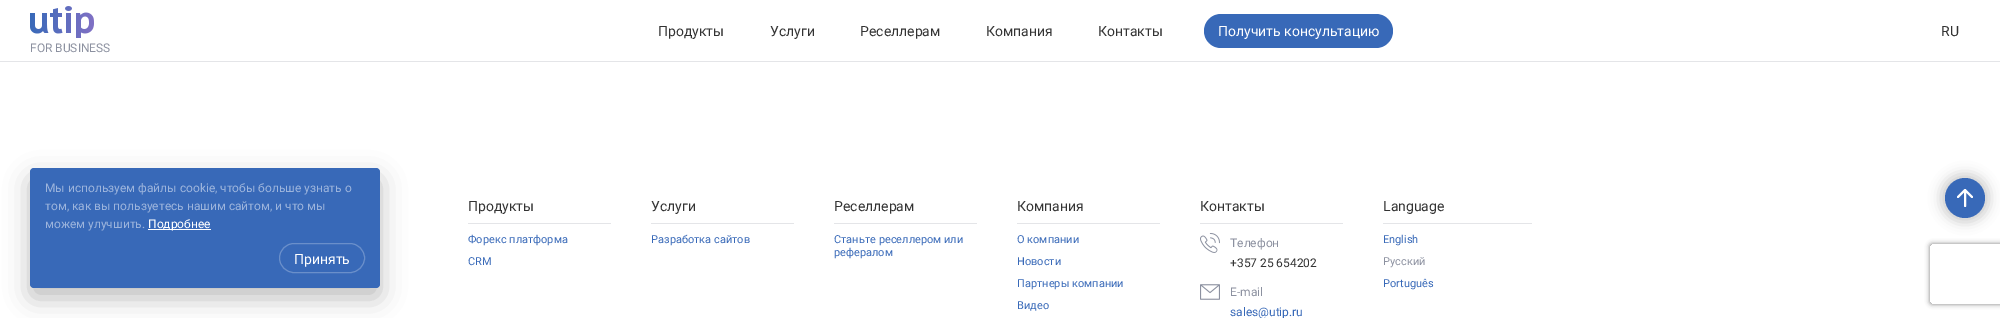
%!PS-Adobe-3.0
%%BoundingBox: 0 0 2000 318
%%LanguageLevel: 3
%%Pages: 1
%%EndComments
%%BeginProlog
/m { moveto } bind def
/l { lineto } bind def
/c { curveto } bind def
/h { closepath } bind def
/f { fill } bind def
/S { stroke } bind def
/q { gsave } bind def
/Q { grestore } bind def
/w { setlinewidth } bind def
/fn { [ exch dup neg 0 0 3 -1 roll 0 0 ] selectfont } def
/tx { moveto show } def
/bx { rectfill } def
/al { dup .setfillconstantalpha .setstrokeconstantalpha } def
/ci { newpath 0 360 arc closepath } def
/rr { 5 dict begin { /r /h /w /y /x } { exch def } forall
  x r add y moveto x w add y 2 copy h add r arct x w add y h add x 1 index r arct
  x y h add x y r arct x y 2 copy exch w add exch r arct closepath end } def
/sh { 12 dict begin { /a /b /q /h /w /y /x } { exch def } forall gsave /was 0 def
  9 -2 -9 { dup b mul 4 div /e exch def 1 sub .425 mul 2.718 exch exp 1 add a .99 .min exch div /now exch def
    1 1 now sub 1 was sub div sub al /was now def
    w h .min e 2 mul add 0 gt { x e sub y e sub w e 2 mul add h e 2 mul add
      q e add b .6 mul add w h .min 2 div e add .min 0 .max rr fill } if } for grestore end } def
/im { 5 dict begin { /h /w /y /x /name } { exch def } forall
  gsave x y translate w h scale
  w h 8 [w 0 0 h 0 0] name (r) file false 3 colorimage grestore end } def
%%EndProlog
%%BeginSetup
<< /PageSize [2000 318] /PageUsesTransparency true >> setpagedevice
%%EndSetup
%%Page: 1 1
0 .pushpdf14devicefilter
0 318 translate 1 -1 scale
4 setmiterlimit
1 setgray
0 0 2000 318 bx
0.894 0.898 0.91 setrgbcolor
0 61 2000 1 bx
/Roboto-Regular 14 fn
0.2 setgray
(Продукты) 658 36 tx
(Услуги) 770 36 tx
(Реселлерам) 860 36 tx
(Компания) 986 36 tx
(Контакты) 1098 36 tx
0.22 0.412 0.722 setrgbcolor
1204 14 189 34 17 rr f
1 setgray
(Получить консультацию) 1218 36 tx
0.2 setgray
(RU) 1941 36 tx
(image0.raw) 30 6 64 32 im
/Roboto-Regular 12 fn
0.549 0.569 0.627 setrgbcolor
(FOR BUSINESS) 30 52 tx
0.894 0.898 0.91 setrgbcolor
468 223 143 1 bx
/Roboto-Regular 14 fn
0.2 setgray
(Продукты) 468 211 tx
/Roboto-Regular 11 fn
0.22 0.412 0.722 setrgbcolor
(Форекс платформа) 468 243 tx
(CRM) 468 265 tx
0.894 0.898 0.91 setrgbcolor
651 223 143 1 bx
/Roboto-Regular 14 fn
0.2 setgray
(Услуги) 651 211 tx
/Roboto-Regular 11 fn
0.22 0.412 0.722 setrgbcolor
(Разработка сайтов) 651 243 tx
0.894 0.898 0.91 setrgbcolor
834 223 143 1 bx
/Roboto-Regular 14 fn
0.2 setgray
(Реселлерам) 834 211 tx
/Roboto-Regular 11 fn
0.22 0.412 0.722 setrgbcolor
(Станьте реселлером или) 834 243 tx
(рефералом) 834 256 tx
0.894 0.898 0.91 setrgbcolor
1017 223 143 1 bx
/Roboto-Regular 14 fn
0.2 setgray
(Компания) 1017 211 tx
/Roboto-Regular 11 fn
0.22 0.412 0.722 setrgbcolor
(О компании) 1017 243 tx
(Новости) 1017 265 tx
(Партнеры компании) 1017 287 tx
(Видео) 1017 309 tx
0.894 0.898 0.91 setrgbcolor
1200 223 143 1 bx
/Roboto-Regular 14 fn
0.2 setgray
(Контакты) 1200 211 tx
(image1.raw) 1200 233 20 20 im
/Roboto-Regular 12 fn
0.549 0.569 0.627 setrgbcolor
(Телефон) 1230 247 tx
0.2 setgray
(+357 25 654202) 1230 267 tx
(image2.raw) 1200 284 20 16 im
0.549 0.569 0.627 setrgbcolor
(E-mail) 1230 296 tx
0.22 0.412 0.722 setrgbcolor
(sales@utip.ru) 1230 316 tx
0.894 0.898 0.91 setrgbcolor
1383 223 149 1 bx
/Roboto-Regular 14 fn
0.2 setgray
(Language) 1383 211 tx
/Roboto-Regular 11 fn
0.22 0.412 0.722 setrgbcolor
(English) 1383 243 tx
0.549 0.569 0.627 setrgbcolor
(Русский) 1383 265 tx
0.22 0.412 0.722 setrgbcolor
(Português) 1383 287 tx
0 setgray
1941 174 48 48 24 6 0.2 sh
0.22 0.412 0.722 setrgbcolor
1965 198 20 ci f
1 setgray
2 w
1 setlinecap
1 setlinejoin
1965 206 m 1965 190 l 1965 190 m 1972 197 l 1965 190 m 1958 197 l S
0 setgray
30 178 350 120 4 12.5 0.25 sh
0.22 0.412 0.722 setrgbcolor
30 168 350 120 4 rr f
/Roboto-Regular 12 fn
0.612 0.706 0.863 setrgbcolor
(Мы используем файлы cookie, чтобы больше узнать о) 45 192 tx
(том, как вы пользуетесь нашим сайтом, и что мы) 45 210 tx
(можем улучшить.) 45 228 tx
1 setgray
148 229 63 1 bx
(Подробнее) 148 228 tx
0.416 0.561 0.792 setrgbcolor
1 w
0 setlinecap
0 setlinejoin
279.5 243.5 85 29 14.5 rr S
/Roboto-Regular 14 fn
1 setgray
(Принять) 294 264 tx
q
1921 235 m 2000 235 l 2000 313 l 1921 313 l h 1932 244 m 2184 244 l 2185 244 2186 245 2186 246 c 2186 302 l 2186 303 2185 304 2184 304 c 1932 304 l 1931 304 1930 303 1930 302 c 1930 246 l 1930 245 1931 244 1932 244 c h eoclip newpath
0.502 setgray
1930 244 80 60 2 2.5 1 sh
Q
.poppdf14devicefilter showpage
%%EOF
